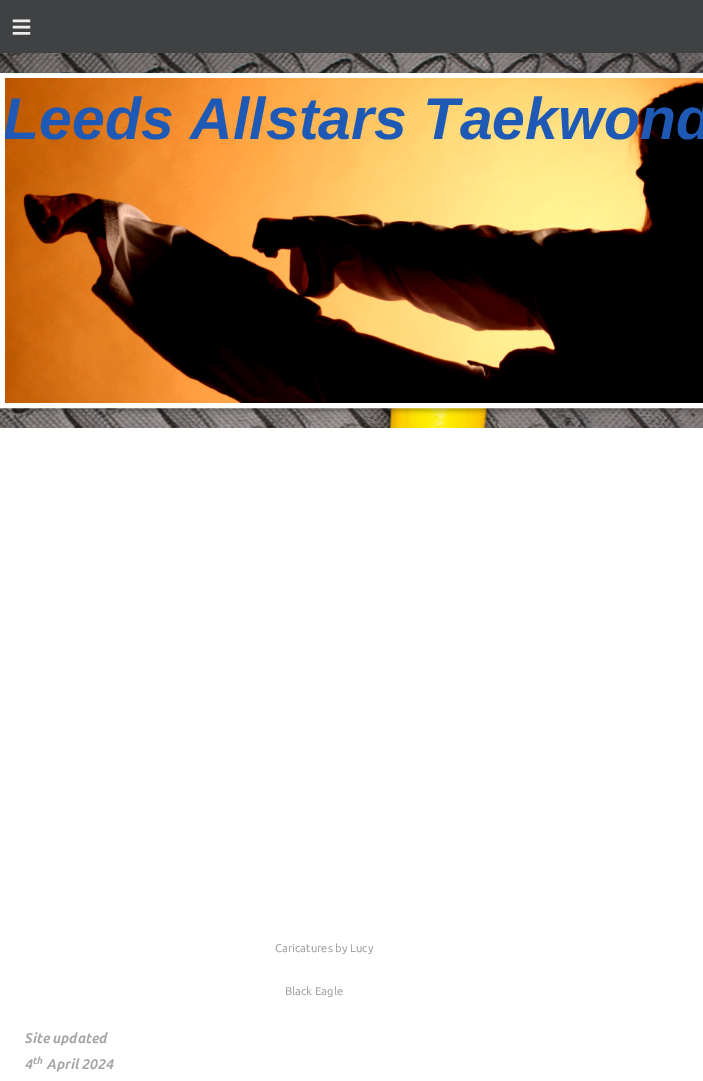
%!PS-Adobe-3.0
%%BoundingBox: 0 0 703 1081
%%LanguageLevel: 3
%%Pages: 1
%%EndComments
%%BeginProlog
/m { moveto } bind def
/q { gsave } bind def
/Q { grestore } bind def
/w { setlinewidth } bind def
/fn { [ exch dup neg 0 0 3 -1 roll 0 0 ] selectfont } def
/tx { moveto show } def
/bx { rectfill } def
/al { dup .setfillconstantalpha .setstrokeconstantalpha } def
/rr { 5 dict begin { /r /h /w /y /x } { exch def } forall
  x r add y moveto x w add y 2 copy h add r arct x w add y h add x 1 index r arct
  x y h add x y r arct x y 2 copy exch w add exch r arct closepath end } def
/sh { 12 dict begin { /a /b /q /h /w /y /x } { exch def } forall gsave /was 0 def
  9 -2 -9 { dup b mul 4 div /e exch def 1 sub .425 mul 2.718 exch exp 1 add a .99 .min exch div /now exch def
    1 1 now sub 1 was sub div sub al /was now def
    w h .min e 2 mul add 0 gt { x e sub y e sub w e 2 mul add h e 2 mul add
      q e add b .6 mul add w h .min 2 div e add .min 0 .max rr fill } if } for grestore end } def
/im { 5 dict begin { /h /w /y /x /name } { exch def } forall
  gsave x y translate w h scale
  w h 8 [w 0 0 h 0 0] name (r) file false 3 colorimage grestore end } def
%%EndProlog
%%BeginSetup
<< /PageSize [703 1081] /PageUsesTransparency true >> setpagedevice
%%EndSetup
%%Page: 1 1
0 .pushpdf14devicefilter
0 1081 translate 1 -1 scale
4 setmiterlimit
1 setgray
0 0 703 1081 bx
(image0.raw) 0 53 703 375 im
0.247 0.255 0.259 setrgbcolor
0 0 703 53 bx
/LiberationSans-Regular 36 fn
0.925 setgray
11 39 m 10 0 (≡) ashow
0 setgray
10 76 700 335 0 2.5 0.3 sh
1 setgray
5 w
2.5 75.5 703 330 rectstroke
(image1.raw) 5 78 698 325 im
q
5 78 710 325 rectclip
/LiberationSans-BoldItalic 58.9 fn
0.118 0.353 0.71 setrgbcolor
3 139 m 0.1 0 (Leeds Allstars Taekwond) ashow
Q
/Ubuntu-Regular 11.25 fn
0.639 setgray
(Caricatures by Lucy) 275 952 tx
(Black Eagle) 285 995 tx
/Ubuntu-BoldItalic 14 fn
(Site updated) 25 1043 tx
(4) 25 1069 tx
/Ubuntu-BoldItalic 10 fn
(th) 33 1064 tx
/Ubuntu-BoldItalic 14 fn
(April 2024) 47 1069 tx
.poppdf14devicefilter showpage
%%EOF
